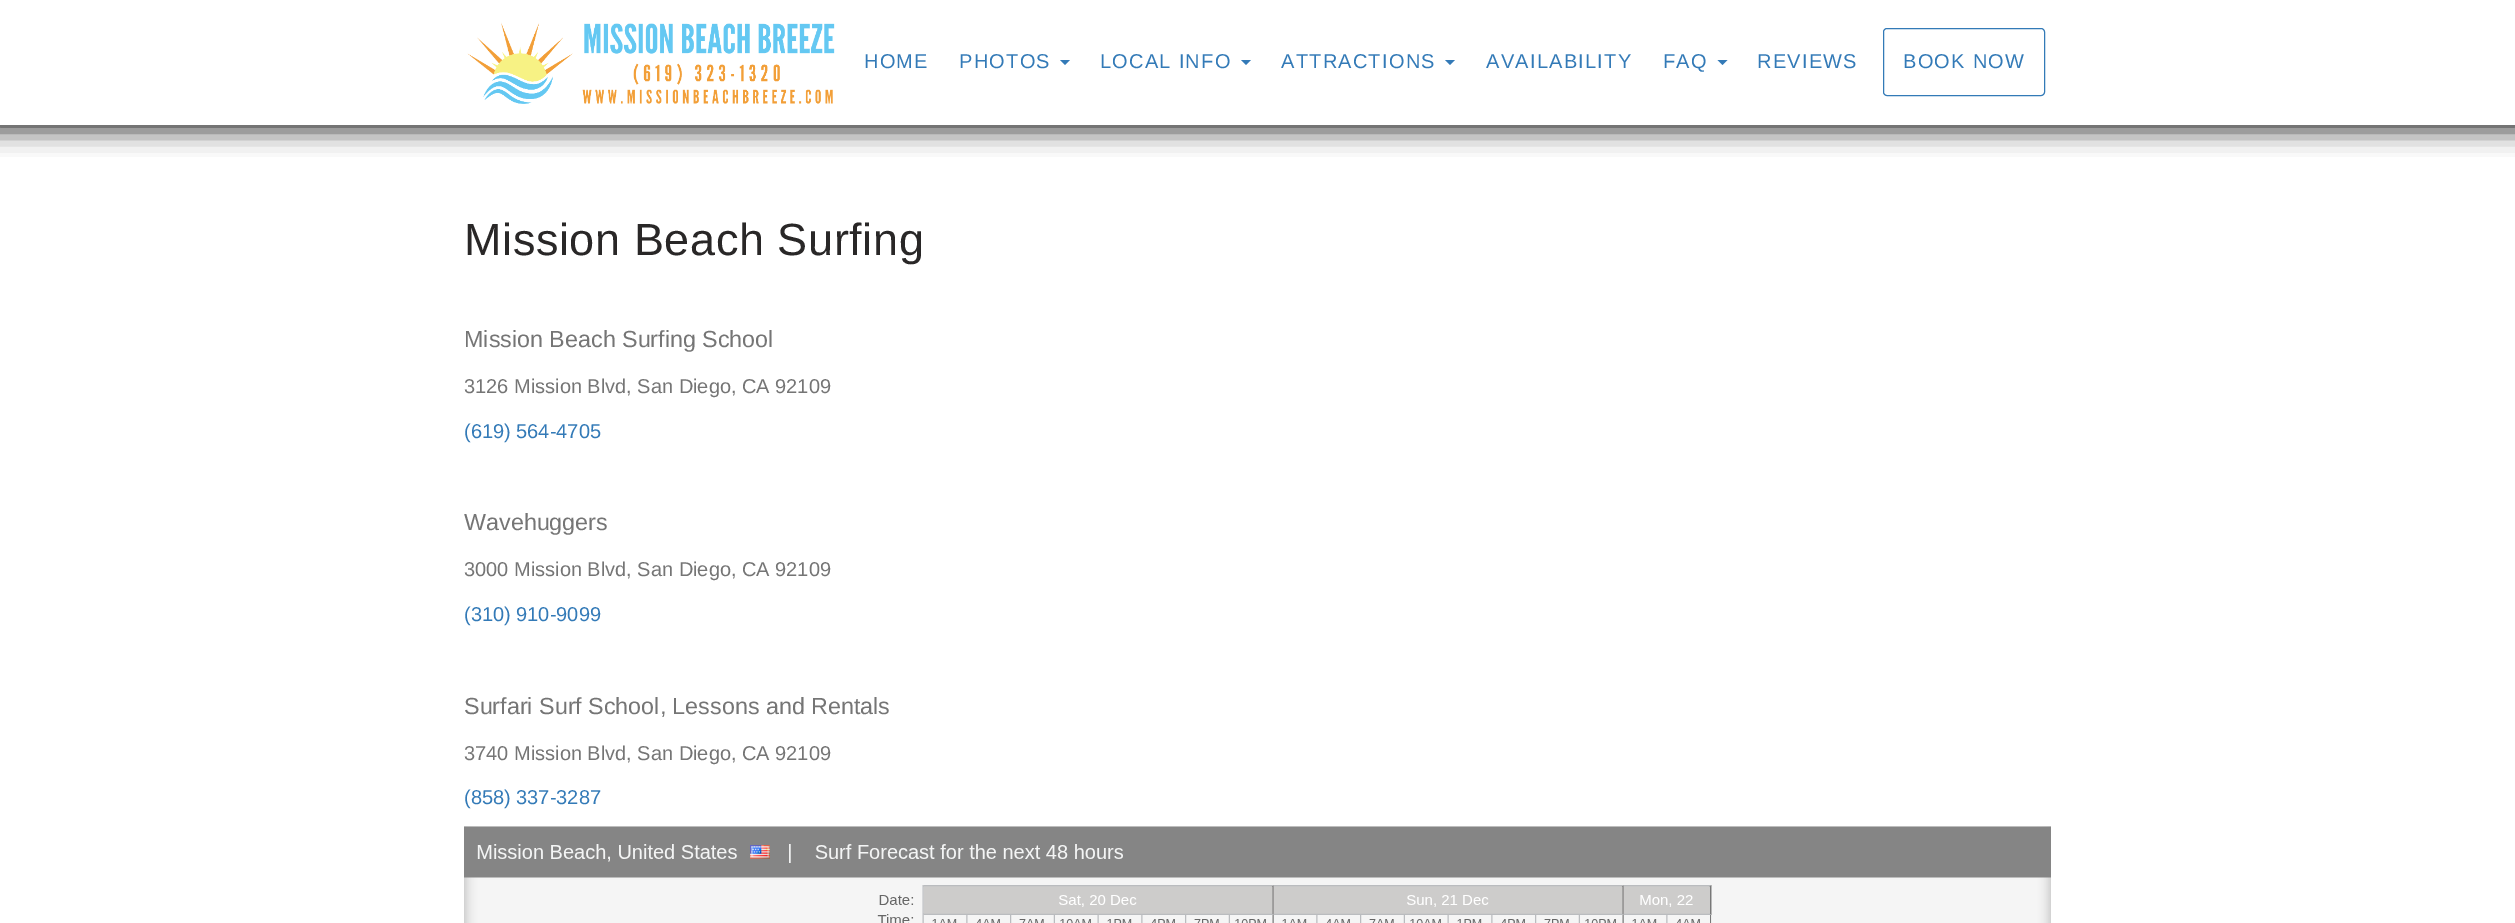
%!PS-Adobe-3.0
%%BoundingBox: 0 0 2515 923
%%LanguageLevel: 3
%%Pages: 1
%%EndComments
%%BeginProlog
/m { moveto } bind def
/l { lineto } bind def
/h { closepath } bind def
/f { fill } bind def
/S { stroke } bind def
/q { gsave } bind def
/Q { grestore } bind def
/fn { [ exch dup neg 0 0 3 -1 roll 0 0 ] selectfont } def
/tx { moveto show } def
/bx { rectfill } def
/al { dup .setfillconstantalpha .setstrokeconstantalpha } def
/rr { 5 dict begin { /r /h /w /y /x } { exch def } forall
  x r add y moveto x w add y 2 copy h add r arct x w add y h add x 1 index r arct
  x y h add x y r arct x y 2 copy exch w add exch r arct closepath end } def
/sh { 12 dict begin { /a /b /q /h /w /y /x } { exch def } forall gsave /was 0 def
  9 -2 -9 { dup b mul 4 div /e exch def 1 sub .425 mul 2.718 exch exp 1 add a .99 .min exch div /now exch def
    1 1 now sub 1 was sub div sub al /was now def
    w h .min e 2 mul add 0 gt { x e sub y e sub w e 2 mul add h e 2 mul add
      q e add b .6 mul add w h .min 2 div e add .min 0 .max rr fill } if } for grestore end } def
/im { 5 dict begin { /h /w /y /x /name } { exch def } forall
  gsave x y translate w h scale
  w h 8 [w 0 0 h 0 0] name (r) file false 3 colorimage grestore end } def
%%EndProlog
%%BeginSetup
<< /PageSize [2515 923] /PageUsesTransparency true >> setpagedevice
%%EndSetup
%%Page: 1 1
0 .pushpdf14devicefilter
0 923 translate 1 -1 scale
4 setmiterlimit
1 setgray
0 0 2515 923 bx
q
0 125 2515 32 rectclip
0.212 setgray
-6 -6 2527 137 0 12.5 1 sh
Q
(image0.raw) 467 22 368 82 im
/LiberationSans-Regular 20 fn
0.2 0.478 0.718 setrgbcolor
864 68 m 1.25 0 (HOME) ashow
959 68 m 1.25 0 (PHOTOS) ashow
1060 60 m 1070 60 l 1065 65 l h f
1100 68 m 1.25 0 (LOCAL INFO) ashow
1241 60 m 1251 60 l 1246 65 l h f
1281 68 m 1.25 0 (ATTRACTIONS) ashow
1445 60 m 1455 60 l 1450 65 l h f
1486 68 m 1.25 0 (AVAILABILITY) ashow
1663 68 m 1.25 0 (FAQ) ashow
1717.5 60 m 1727.5 60 l 1722.5 65 l h f
1757 68 m 1.25 0 (REVIEWS) ashow
1883.5 28.5 161 67 3.5 rr S
1903 68 m 1.25 0 (BOOK NOW) ashow
/LiberationSans-Regular 45 fn
0.161 0.153 0.153 setrgbcolor
464 255 m 0.6 0 (Mission Beach Surfing) ashow
/LiberationSans-Regular 23.3 fn
0.459 setgray
(Mission Beach Surfing School) 464 347 tx
/LiberationSans-Regular 20 fn
(3126 Mission Blvd, San Diego, CA 92109) 464 393 tx
0.2 0.478 0.718 setrgbcolor
(\(619\) 564-4705) 464 438 tx
/LiberationSans-Regular 23.3 fn
0.459 setgray
(Wavehuggers) 464 530 tx
/LiberationSans-Regular 20 fn
(3000 Mission Blvd, San Diego, CA 92109) 464 576 tx
0.2 0.478 0.718 setrgbcolor
(\(310\) 910-9099) 464 621 tx
/LiberationSans-Regular 23.3 fn
0.459 setgray
(Surfari Surf School, Lessons and Rentals) 464 714 tx
/LiberationSans-Regular 20 fn
(3740 Mission Blvd, San Diego, CA 92109) 464 760 tx
0.2 0.478 0.718 setrgbcolor
(\(858\) 337-3287) 464 804 tx
(image1.raw) 464 826 1587 97 im
.poppdf14devicefilter showpage
%%EOF
